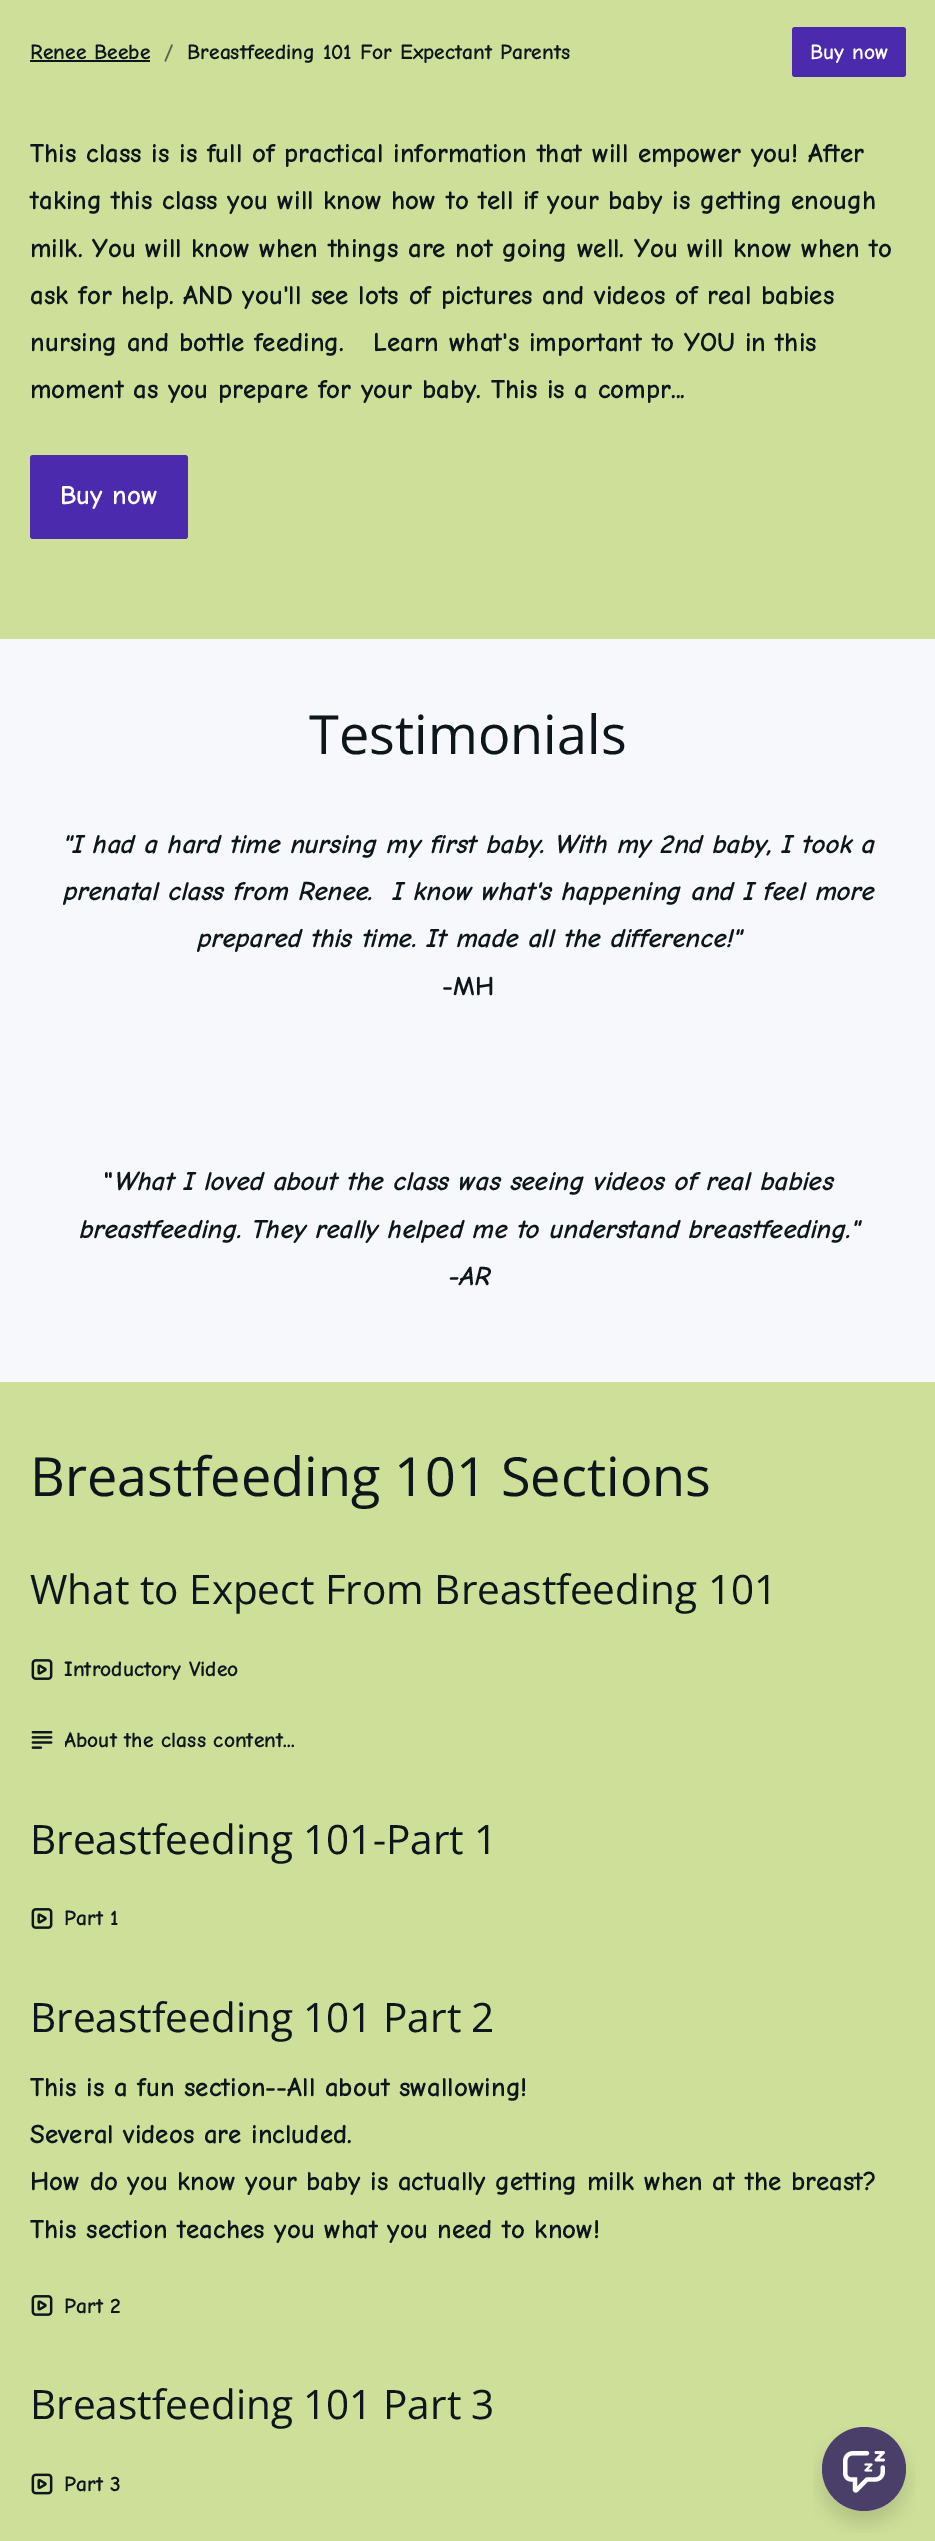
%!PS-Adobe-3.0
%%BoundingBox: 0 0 935 2541
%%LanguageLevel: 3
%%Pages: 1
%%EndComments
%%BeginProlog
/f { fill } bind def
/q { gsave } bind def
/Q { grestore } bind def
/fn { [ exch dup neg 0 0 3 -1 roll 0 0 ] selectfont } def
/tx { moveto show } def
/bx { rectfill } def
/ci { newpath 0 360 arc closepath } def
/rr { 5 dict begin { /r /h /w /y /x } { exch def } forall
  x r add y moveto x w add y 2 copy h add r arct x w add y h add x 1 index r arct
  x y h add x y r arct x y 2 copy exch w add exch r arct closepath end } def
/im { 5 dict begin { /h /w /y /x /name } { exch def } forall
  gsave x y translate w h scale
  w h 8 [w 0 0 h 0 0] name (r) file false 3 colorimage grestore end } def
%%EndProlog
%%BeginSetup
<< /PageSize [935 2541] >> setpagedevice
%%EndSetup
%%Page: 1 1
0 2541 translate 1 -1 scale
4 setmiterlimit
0.804 0.875 0.6 setrgbcolor
0 0 935 2541 bx
/ComicNeue-Bold 21.6 fn
0.051 0.086 0.106 setrgbcolor
(Renee Beebe) 30 59 tx
30 60 120 2 bx
0.353 0.4 0.302 setrgbcolor
(/) 164 59 tx
0.051 0.086 0.106 setrgbcolor
(Breastfeeding 101 For Expectant Parents) 187 59 tx
0.294 0.165 0.678 setrgbcolor
792 27 114 50 3 rr f
1 setgray
(Buy now) 810 59 tx
/ComicNeue-Bold 27 fn
0.051 0.086 0.106 setrgbcolor
(This class is is full of practical information that will empower you! After) 30 162 tx
(taking this class you will know how to tell if your baby is getting enough) 30 209 tx
(milk. You will know when things are not going well. You will know when to) 30 257 tx
(ask for help. AND you'll see lots of pictures and videos of real babies) 30 304 tx
(nursing and bottle feeding.   Learn what's important to YOU in this) 30 351 tx
(moment as you prepare for your baby. This is a compr...) 30 398 tx
0.294 0.165 0.678 setrgbcolor
30 455 158 84 3 rr f
1 setgray
(Buy now) 60 504 tx
0.969 0.973 0.988 setrgbcolor
0 639 935 743 bx
/OpenSans-Regular 54 fn
0.051 0.086 0.106 setrgbcolor
(Testimonials) 309 754 tx
/ComicNeue-BoldItalic 27 fn
("I had a hard time nursing my first baby. With my 2nd baby, I took a) 62 853 tx
(prenatal class from Renee.  I know what's happening and I feel more) 62 900 tx
(prepared this time. It made all the difference!") 196 947 tx
/ComicNeue-Bold 27 fn
(-MH) 442 995 tx
(") 104 1190 tx
/ComicNeue-BoldItalic 27 fn
(What I loved about the class was seeing videos of real babies) 113 1190 tx
(breastfeeding. They really helped me to understand breastfeeding.") 78 1238 tx
(-AR) 447 1285 tx
/OpenSans-Regular 54 fn
(Breastfeeding 101 Sections) 30 1496 tx
/OpenSans-Regular 40.5 fn
(What to Expect From Breastfeeding 101) 30 1604 tx
(image0.raw) 31 1659 22 21 im
/ComicNeue-Bold 21.6 fn
(Introductory Video) 64 1676 tx
(image1.raw) 31 1731 22 18 im
q
65 1722 229 38 rectclip
(About the class content...) 64 1747 tx
Q
/OpenSans-Regular 40.5 fn
(Breastfeeding 101-Part 1) 30 1854 tx
(image2.raw) 31 1908 22 21 im
/ComicNeue-Bold 21.6 fn
(Part 1) 64 1925 tx
/OpenSans-Regular 40.5 fn
(Breastfeeding 101 Part 2) 30 2032 tx
/ComicNeue-Bold 27 fn
(This is a fun section--All about swallowing!) 30 2096 tx
(Several videos are included.) 30 2143 tx
(How do you know your baby is actually getting milk when at the breast?) 30 2190 tx
(This section teaches you what you need to know!) 30 2238 tx
(image3.raw) 31 2295 22 21 im
/ComicNeue-Bold 21.6 fn
(Part 2) 64 2313 tx
/OpenSans-Regular 40.5 fn
(Breastfeeding 101 Part 3) 30 2419 tx
(image4.raw) 31 2473 22 22 im
/ComicNeue-Bold 21.6 fn
(Part 3) 64 2491 tx
(image5.raw) 813 2427 103 106 im
0.29 0.247 0.408 setrgbcolor
864 2469 42 ci f
(image6.raw) 843 2451 42 42 im
showpage
%%EOF
